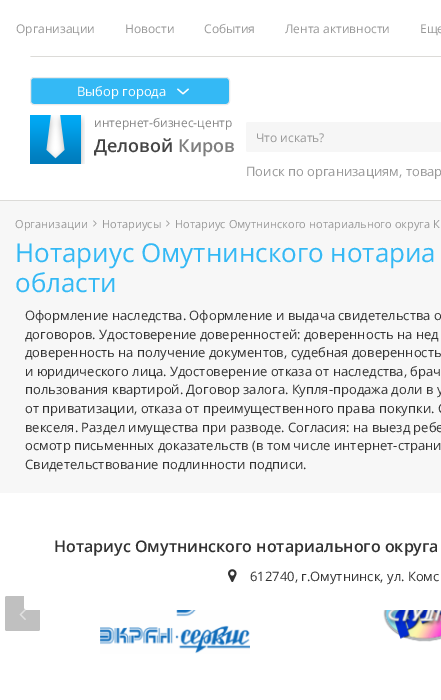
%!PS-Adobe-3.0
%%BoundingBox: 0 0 441 700
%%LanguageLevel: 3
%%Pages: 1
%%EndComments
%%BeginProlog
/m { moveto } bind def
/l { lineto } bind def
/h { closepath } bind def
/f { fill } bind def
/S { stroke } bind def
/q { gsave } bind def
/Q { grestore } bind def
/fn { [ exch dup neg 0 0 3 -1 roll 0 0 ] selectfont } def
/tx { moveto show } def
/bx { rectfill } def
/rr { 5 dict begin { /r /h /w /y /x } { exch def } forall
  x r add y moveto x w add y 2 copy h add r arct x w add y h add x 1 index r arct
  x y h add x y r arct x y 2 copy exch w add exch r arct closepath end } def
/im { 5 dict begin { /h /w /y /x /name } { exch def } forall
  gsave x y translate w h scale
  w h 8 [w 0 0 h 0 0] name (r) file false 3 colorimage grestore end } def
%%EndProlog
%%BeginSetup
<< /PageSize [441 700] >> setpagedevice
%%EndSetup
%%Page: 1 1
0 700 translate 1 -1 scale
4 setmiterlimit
1 setgray
0 0 441 700 bx
0.863 0.859 0.847 setrgbcolor
0 200 441 1 bx
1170 57 m 30 57 l 31 56 l 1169 56 l h f
/OpenSans-Regular 12 fn
0.6 setgray
(Организации) 16 33 tx
(Новости) 125 33 tx
(События) 204 33 tx
(Лента активности) 285 33 tx
(Еще) 420 33 tx
0.204 0.725 0.961 setrgbcolor
30.5 77.5 199 27 3.5 rr q f Q
0.918 setgray
S
/OpenSans-Regular 13 fn
1 setgray
(Выбор города) 77 96 tx
(image0.raw) 177 88 12 7 im
(image1.raw) 30 115 55 49 im
/OpenSans-Regular 12 fn
0.529 setgray
(интернет-бизнес-центр) 94 127 tx
/OpenSans-SemiBold 18 fn
0.267 setgray
(Деловой) 94 152 tx
0.494 setgray
(Киров) 178 152 tx
0.965 setgray
246 122 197 30 2 rr f
/OpenSans-Regular 12 fn
0.6 setgray
(Что искать?) 256 142 tx
/OpenSans-Regular 13 fn
(Поиск по организациям, товар) 246 176 tx
0.969 setgray
0 201 441 292 bx
/OpenSans-Regular 11.05 fn
0.6 setgray
(Организации) 15 228 tx
(image2.raw) 93 220 4 7 im
(Нотариусы) 102 228 tx
(image2.raw) 166 220 4 7 im
(Нотариус Омутнинского нотариального округа К) 175 228 tx
/OpenSans-Regular 26 fn
0.204 0.725 0.961 setrgbcolor
(Нотариус Омутнинского нотариа) 15 262 tx
(области) 15 292 tx
/OpenSans-Regular 13 fn
0.196 setgray
(Оформление наследства. Оформление и выдача свидетельства о) 25 320 tx
(договоров. Удостоверение доверенностей: доверенность на нед) 25 339 tx
(доверенность на получение документов, судебная доверенность) 25 357 tx
(и юридического лица. Удостоверение отказа от наследства, брач) 25 376 tx
(пользования квартирой. Договор залога. Купля-продажа доли в у) 25 394 tx
(от приватизации, отказа от преимущественного права покупки. С) 25 413 tx
(векселя. Раздел имущества при разводе. Согласия: на выезд ребе) 25 432 tx
(осмотр письменных доказательств \(в том числе интернет-страни) 25 450 tx
(Свидетельствование подлинности подписи.) 25 469 tx
0.753 setgray
5 596 35 35 2 rr f
(image4.raw) 19 609 7 11 im
1 setgray
24 511 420 99 3 rr f
/OpenSans-SemiBold 16 fn
0.196 setgray
(Нотариус Омутнинского нотариального округа) 54 552 tx
(image3.raw) 228 569 9 13 im
/OpenSans-Regular 13 fn
(612740, г.Омутнинск, ул. Комс) 250 581 tx
(image5.raw) 100 610 150 44 im
(image6.raw) 383 610 58 32 im
showpage
%%EOF
